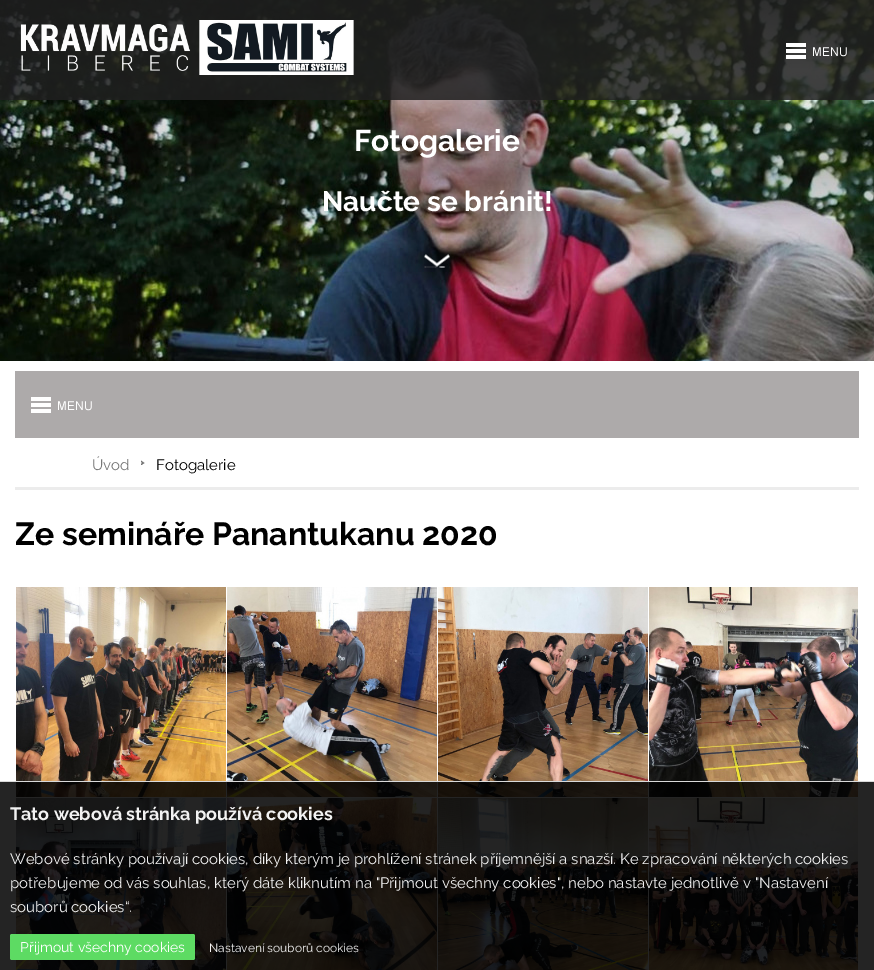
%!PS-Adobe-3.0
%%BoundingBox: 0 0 874 970
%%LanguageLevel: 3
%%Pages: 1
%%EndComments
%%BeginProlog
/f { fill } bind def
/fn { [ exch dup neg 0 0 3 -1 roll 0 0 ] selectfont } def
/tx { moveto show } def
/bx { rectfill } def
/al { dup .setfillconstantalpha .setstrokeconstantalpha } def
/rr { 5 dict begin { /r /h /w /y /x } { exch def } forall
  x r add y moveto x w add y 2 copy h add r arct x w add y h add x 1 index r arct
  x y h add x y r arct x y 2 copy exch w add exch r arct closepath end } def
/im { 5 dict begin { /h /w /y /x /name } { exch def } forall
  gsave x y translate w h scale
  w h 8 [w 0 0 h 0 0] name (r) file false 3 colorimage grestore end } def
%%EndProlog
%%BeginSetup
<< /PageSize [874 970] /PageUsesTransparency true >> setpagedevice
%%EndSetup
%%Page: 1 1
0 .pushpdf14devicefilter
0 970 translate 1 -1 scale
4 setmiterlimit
1 setgray
0 0 874 970 bx
(image2.raw) 0 0 874 361 im
0.85 al
0.122 setgray
0 0 874 100 bx
1 al
(image0.raw) 20 20 334 55 im
(image1.raw) 786 43 61 16 im
/Raleway-Bold 30 fn
1 setgray
(Fotogalerie) 354 151 tx
/Raleway-Bold 28 fn
(Naučte se bránit!) 322 211 tx
(image3.raw) 424 254 26 14 im
0.678 0.667 0.667 setrgbcolor
15 371 844 67 bx
(image4.raw) 31 397 61 16 im
0.925 setgray
15 487 844 3 bx
/Raleway-Regular 15 fn
0.467 setgray
(Úvod) 92 470 tx
(image5.raw) 141 460 4 5 im
0 setgray
(Fotogalerie) 156 470 tx
/Raleway-Bold 32 fn
(Ze semináře Panantukanu 2020) 15 545 tx
(image6.raw) 16 587 210 210 im
(image7.raw) 227 587 210 210 im
(image8.raw) 438 587 210 210 im
(image9.raw) 649 587 209 210 im
(image10.raw) 16 798 210 172 im
(image11.raw) 227 798 210 172 im
(image12.raw) 438 798 210 172 im
(image13.raw) 649 798 209 172 im
0.86 al
0 782 874 188 bx
1 al
0.851 setgray
0 781 874 1 bx
/Raleway-Bold 18 fn
0.949 setgray
(Tato webová stránka používá cookies) 10 820 tx
/Raleway-Regular 15 fn
(Webové stránky používají cookies, díky kterým je prohlížení stránek příjemnější a snazší. Ke zpracování některých cookies) 10 864 tx
(potřebujeme od vás souhlas, který dáte kliknutím na "Přijmout všechny cookies", nebo nastavte jednotlivě v "Nastavení) 10 888 tx
(souborů cookies“.) 10 912 tx
0.365 0.859 0.388 setrgbcolor
10 934 185 26 2 rr f
/Raleway-Regular 14 fn
1 setgray
(Přijmout všechny cookies) 20 952 tx
/Raleway-Regular 12 fn
0.949 setgray
(Nastavení souborů cookies) 209 952 tx
.poppdf14devicefilter showpage
%%EOF
